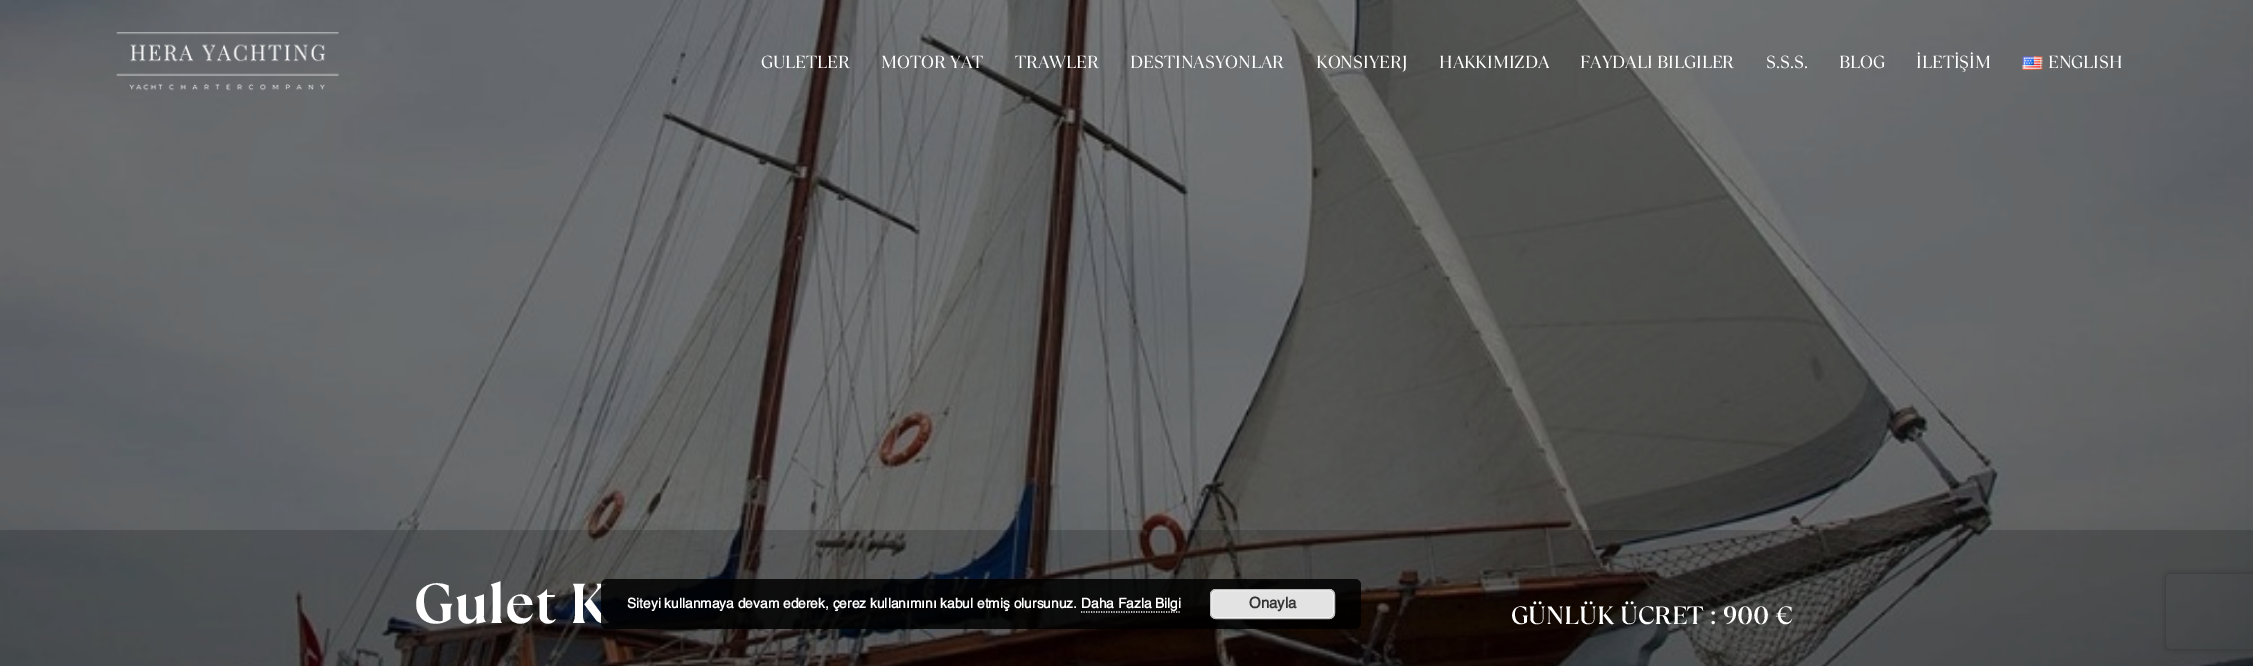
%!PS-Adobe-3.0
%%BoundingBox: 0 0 2253 666
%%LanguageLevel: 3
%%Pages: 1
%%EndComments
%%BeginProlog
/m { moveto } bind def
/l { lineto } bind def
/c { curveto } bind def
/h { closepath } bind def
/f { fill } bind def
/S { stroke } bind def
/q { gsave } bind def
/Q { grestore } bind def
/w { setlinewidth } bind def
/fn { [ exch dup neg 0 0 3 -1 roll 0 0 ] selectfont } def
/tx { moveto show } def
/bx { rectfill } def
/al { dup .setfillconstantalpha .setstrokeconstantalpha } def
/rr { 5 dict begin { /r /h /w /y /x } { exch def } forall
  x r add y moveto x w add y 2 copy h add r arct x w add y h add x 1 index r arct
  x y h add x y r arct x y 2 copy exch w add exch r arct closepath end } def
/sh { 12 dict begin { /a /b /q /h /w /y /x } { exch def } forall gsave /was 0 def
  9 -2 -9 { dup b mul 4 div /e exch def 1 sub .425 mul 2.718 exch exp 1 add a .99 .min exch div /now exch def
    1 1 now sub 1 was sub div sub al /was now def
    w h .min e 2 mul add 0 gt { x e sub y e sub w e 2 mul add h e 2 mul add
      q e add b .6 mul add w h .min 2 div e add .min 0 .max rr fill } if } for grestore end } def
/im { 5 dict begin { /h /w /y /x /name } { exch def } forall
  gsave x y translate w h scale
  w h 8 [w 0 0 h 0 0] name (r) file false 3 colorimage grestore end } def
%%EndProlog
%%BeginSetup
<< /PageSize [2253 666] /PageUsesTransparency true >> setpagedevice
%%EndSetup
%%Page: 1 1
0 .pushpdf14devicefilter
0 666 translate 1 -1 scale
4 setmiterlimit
1 setgray
0 0 2253 666 bx
(image2.raw) 0 0 2253 666 im
(image0.raw) 116 32 223 59 im
/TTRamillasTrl-Regular 17.5 fn
(GULETLER) 761 68 tx
(MOTOR YAT) 881 68 tx
(TRAWLER) 1015 68 tx
(DESTINASYONLAR) 1130 68 tx
(KONSIYERJ) 1316 68 tx
(HAKKIMIZDA) 1439 68 tx
(FAYDALI BILGILER) 1580 68 tx
(S.S.S.) 1766 68 tx
(BLOG) 1839 68 tx
(İLETİŞİM) 1916 68 tx
(image1.raw) 2022 56 21 14 im
(ENGLISH) 2048 68 tx
q
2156 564 m 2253 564 l 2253 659 l 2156 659 l h 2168.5 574 m 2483.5 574 l 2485 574 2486 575 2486 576.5 c 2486 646.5 l 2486 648 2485 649 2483.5 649 c 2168.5 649 l 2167 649 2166 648 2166 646.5 c 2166 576.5 l 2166 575 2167 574 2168.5 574 c h eoclip newpath
0.251 setgray
2166 574 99 75 2.5 3 1 sh
Q
0.17 al
0 setgray
0 530 2253 136 bx
/TTRamillasTrl-Bold 56 fn
1 al
1 setgray
(Gulet K) 414 623 tx
/TTRamillasTrl-Medium 25 fn
(GÜNLÜK ÜCRET : 900 €) 1511 624 tx
0.85 al
0 setgray
601 579 760 50 6 rr f
/Helvetica-Bold 13.75 fn
1 al
1 setgray
(Siteyi kullanmaya devam ederek, çerez kullanımını kabul etmiş olursunuz.) 627 608 tx
1.2 w
[1.25 1.25] 0 setdash
1081 612 m 1181 612 l S
(Daha Fazla Bilgi) 1081 608 tx
0.89 setgray
1210 589 125 30 6 rr f
0.965 setgray
1 w
[] 0 setdash
1211.5 590.5 122 27 4.5 rr S
0.733 setgray
1210.5 589.5 124 29 5.5 rr S
/Helvetica-Bold 15 fn
0.2 setgray
(Onayla) 1249 608 tx
.poppdf14devicefilter showpage
%%EOF
